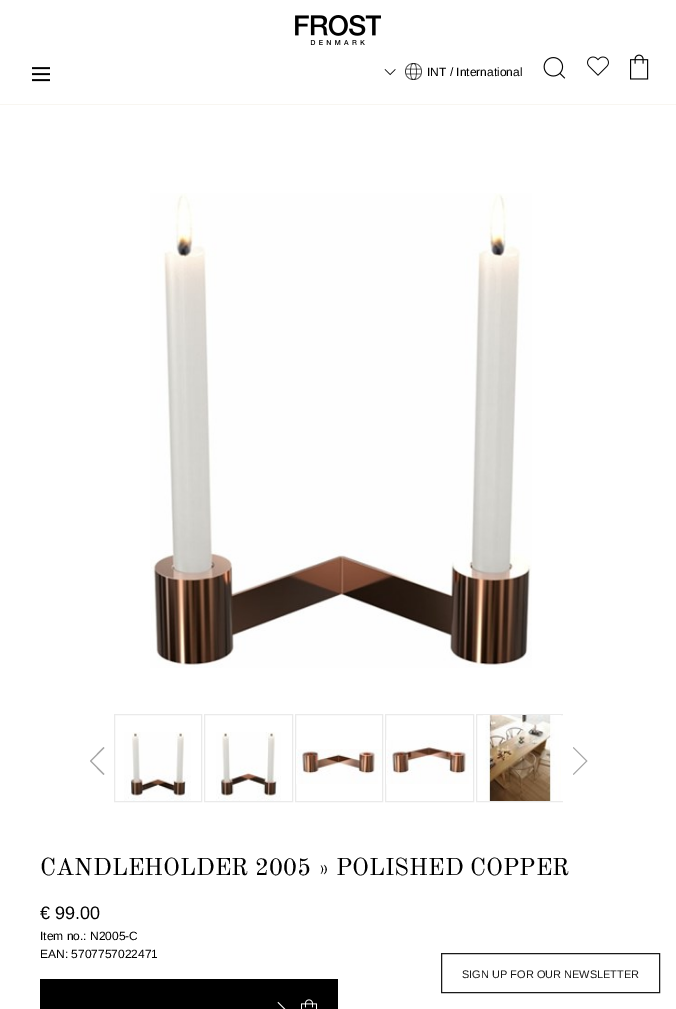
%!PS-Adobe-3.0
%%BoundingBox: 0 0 676 1009
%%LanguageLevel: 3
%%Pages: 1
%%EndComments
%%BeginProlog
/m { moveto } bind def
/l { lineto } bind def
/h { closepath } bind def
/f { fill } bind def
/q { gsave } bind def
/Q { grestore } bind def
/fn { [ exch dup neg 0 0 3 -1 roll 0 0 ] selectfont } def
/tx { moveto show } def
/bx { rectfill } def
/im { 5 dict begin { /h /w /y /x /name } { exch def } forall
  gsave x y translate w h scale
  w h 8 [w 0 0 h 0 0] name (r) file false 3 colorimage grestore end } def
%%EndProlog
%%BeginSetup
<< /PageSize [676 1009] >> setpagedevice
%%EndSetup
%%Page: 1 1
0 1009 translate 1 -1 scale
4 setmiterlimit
1 setgray
0 0 676 1009 bx
0.973 0.965 0.945 setrgbcolor
0 104 676 1 bx
(image0.raw) 295 15 86 30 im
(image1.raw) 32 67 18 15 im
(image2.raw) 384 69 12 7 im
(image3.raw) 405 63 17 17 im
/LiberationSans-Regular 12 fn
0 setgray
(INT / International) 427 76 tx
(image4.raw) 543 57 23 22 im
(image5.raw) 587 56 22 20 im
(image6.raw) 630 54 19 26 im
(image7.raw) 150 193 382 475 im
0.651 setgray
103.5 775 m 104.5 774 l 91.5 761 l 104.5 748 l 103.5 747 l 90 761 l h f
0.918 setgray
114.5 714.5 87 87 rectstroke
(image8.raw) 124 732 67 69 im
204.5 714.5 88 87 rectstroke
(image9.raw) 216 732 65 69 im
295.5 714.5 87 87 rectstroke
(image10.raw) 296 749 86 35 im
385.5 714.5 88 87 rectstroke
(image11.raw) 386 740 87 44 im
q
113 713 450 97 rectclip
476.5 714.5 87 87 rectstroke
Q
(image12.raw) 483 715 78 86 im
0.651 setgray
573.5 775 m 573 774 l 586 761 l 573 748 l 573.5 747 l 587.5 761 l h f
/OldStandardTT-Regular 24 fn
0 setgray
(CANDLEHOLDER 2005 » POLISHED COPPER) 40 875 tx
/LiberationSans-Regular 18 fn
(€ 99.00) 40 919 tx
/LiberationSans-Regular 12 fn
(Item no.: N2005-C) 40 940 tx
(EAN: 5707757022471) 40 958 tx
40 979 298 30 bx
(image13.raw) 277 1001 9 8 im
(image14.raw) 301 999 16 10 im
0.102 setgray
441.5 953.5 218 39 rectstroke
/LiberationSans-Regular 11 fn
(SIGN UP FOR OUR NEWSLETTER) 462 978 tx
showpage
%%EOF
